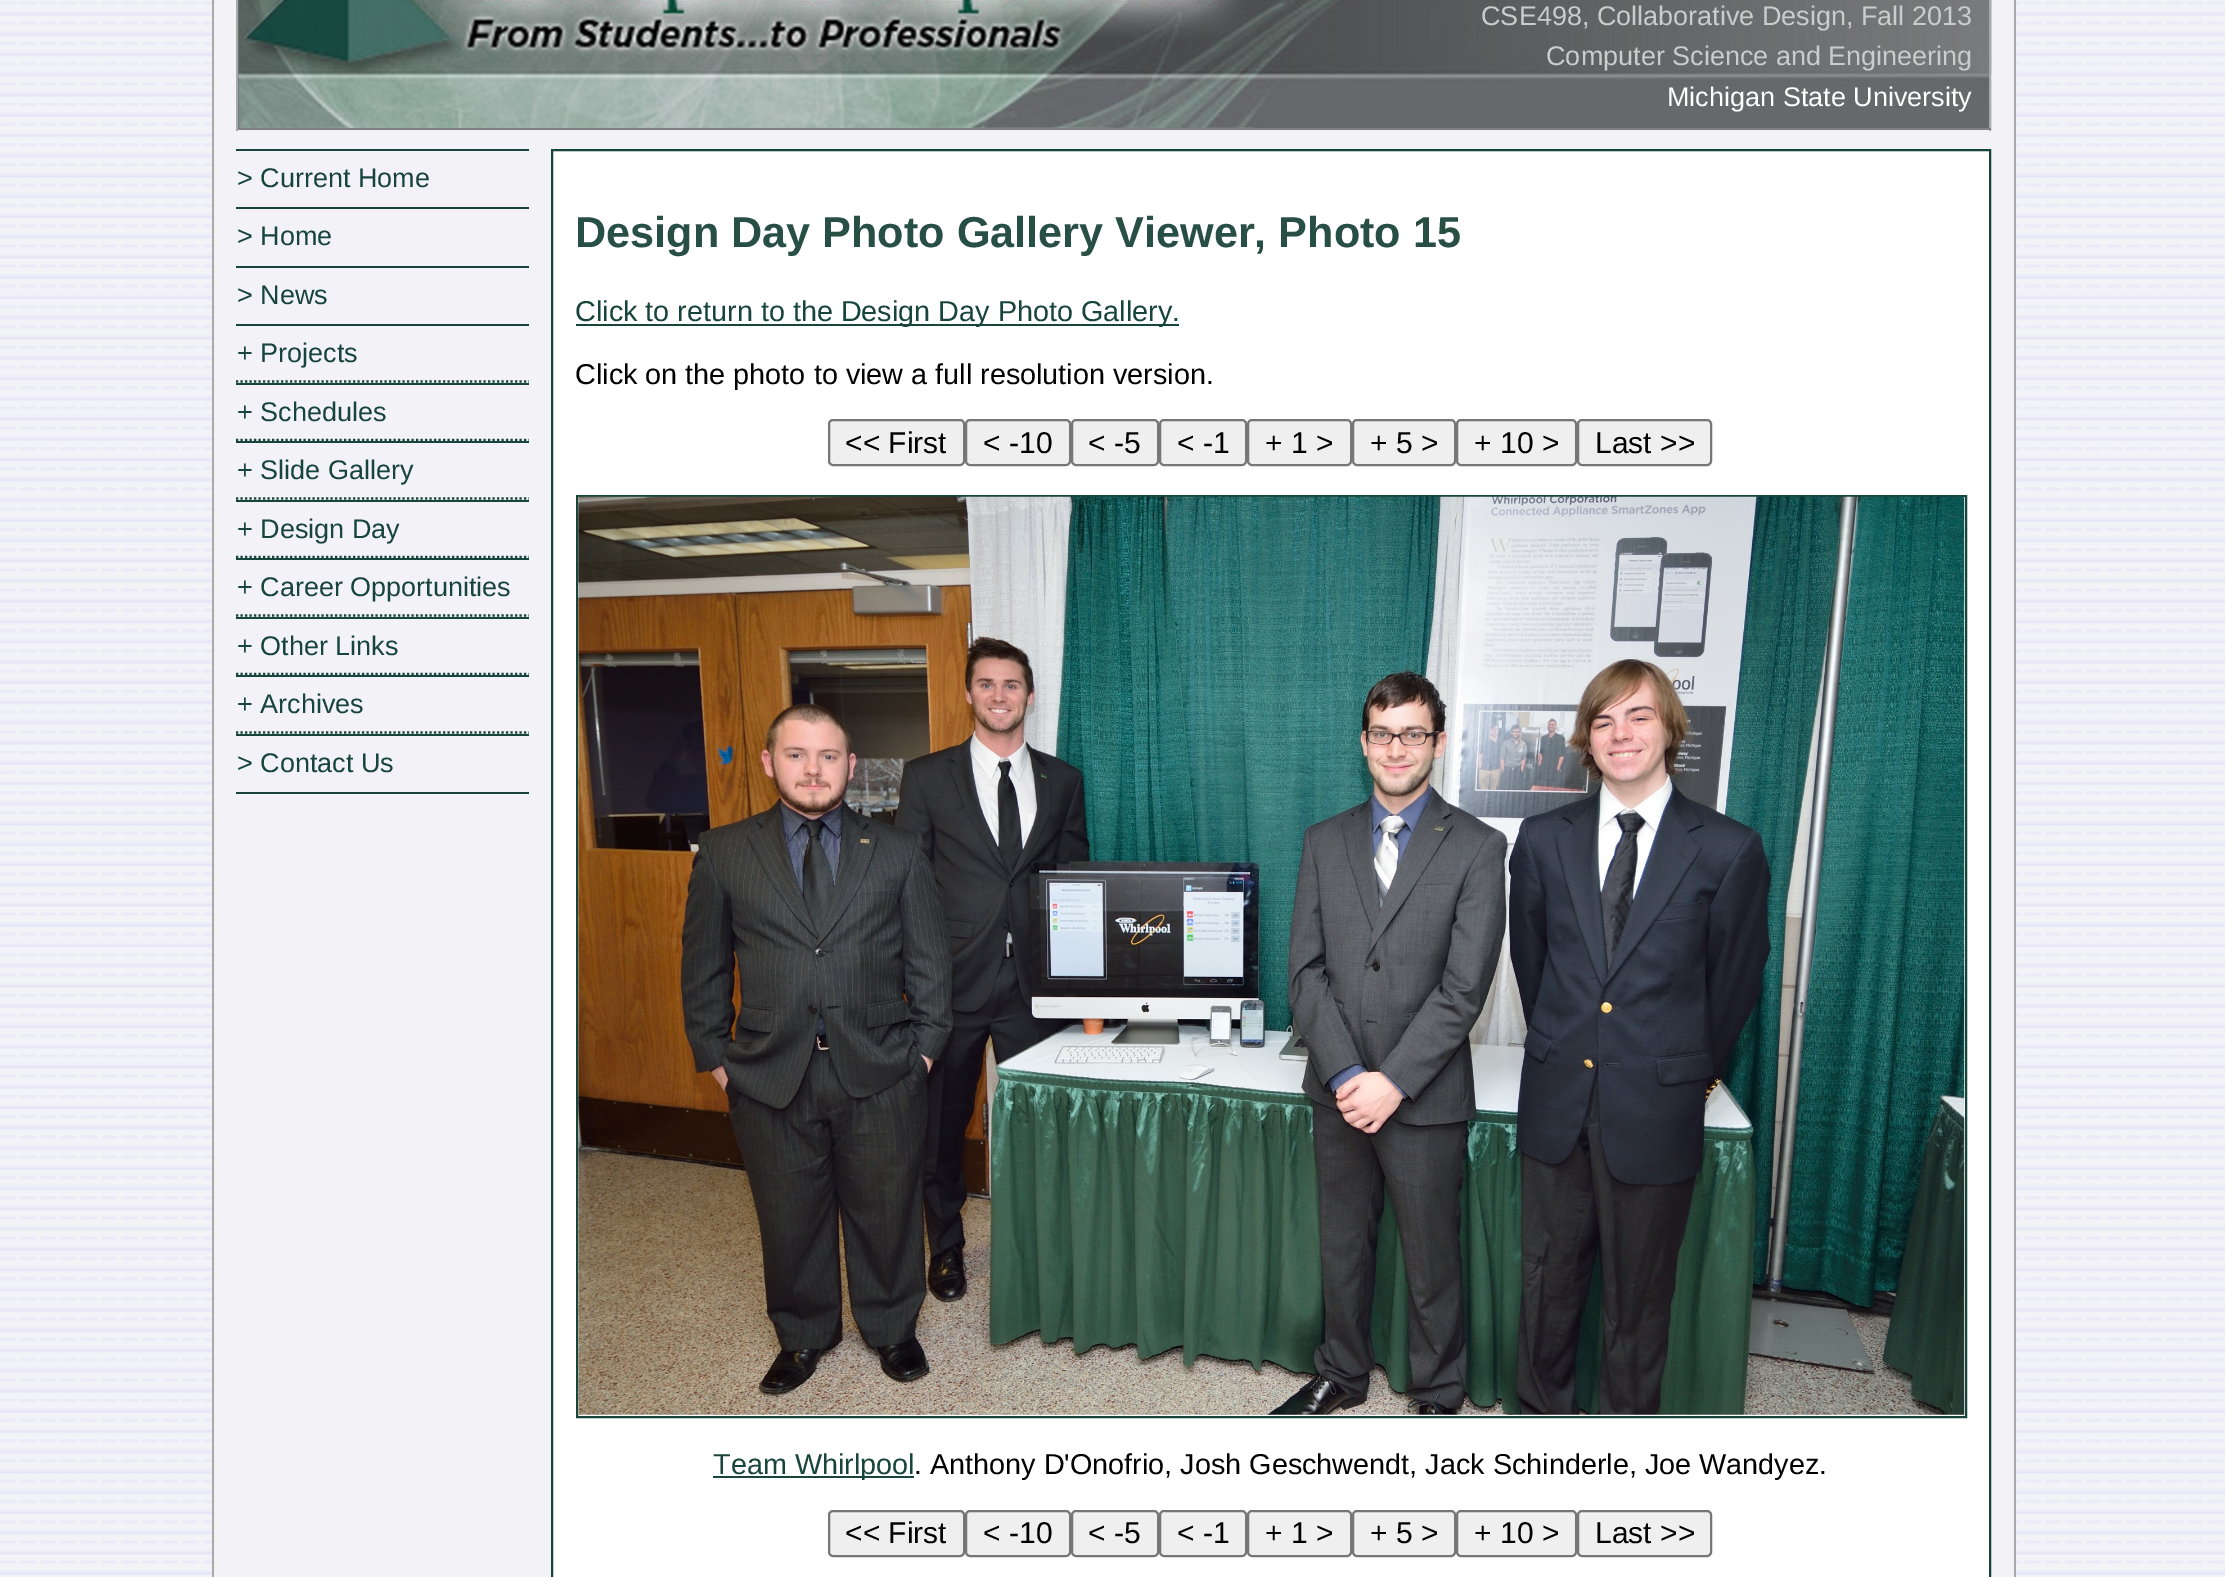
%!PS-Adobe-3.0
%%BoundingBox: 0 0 2225 1577
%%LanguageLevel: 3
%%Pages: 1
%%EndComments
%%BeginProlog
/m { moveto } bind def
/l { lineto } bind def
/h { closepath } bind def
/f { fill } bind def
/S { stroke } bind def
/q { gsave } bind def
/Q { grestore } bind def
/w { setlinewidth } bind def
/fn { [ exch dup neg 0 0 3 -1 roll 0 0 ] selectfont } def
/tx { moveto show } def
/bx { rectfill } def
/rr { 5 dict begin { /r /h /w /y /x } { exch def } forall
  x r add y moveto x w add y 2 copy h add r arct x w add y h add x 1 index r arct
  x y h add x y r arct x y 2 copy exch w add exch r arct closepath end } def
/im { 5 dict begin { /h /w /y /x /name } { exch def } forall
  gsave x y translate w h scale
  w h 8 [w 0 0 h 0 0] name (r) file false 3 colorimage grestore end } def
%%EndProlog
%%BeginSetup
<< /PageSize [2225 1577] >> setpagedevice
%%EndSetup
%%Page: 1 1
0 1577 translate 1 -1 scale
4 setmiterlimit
1 setgray
0 0 2225 1577 bx
(image0.raw) 0 0 2225 1577 im
0.949 0.949 0.969 setrgbcolor
214 1 1800 1574 bx
0.663 setgray
2014 0 2 1577 bx
212 0 2 1577 bx
(image1.raw) 238 0 1754 130 im
1989 0 2 131 bx
0.502 setgray
236 128 1755 2 bx
0.663 setgray
236 0 2 131 bx
/LiberationSans-Regular 27 fn
0.8 setgray
(CSE498, Collaborative Design, Fall 2013) 1481 25 tx
(Computer Science and Engineering) 1546 65 tx
1 setgray
(Michigan State University) 1667 106 tx
0.094 0.271 0.231 setrgbcolor
236 149 293 2 bx
236 207 293 2 bx
(> Current Home) 237 187 tx
236 266 293 2 bx
(> Home) 237 245 tx
236 324 293 2 bx
(> News) 237 304 tx
236 383 293 2 bx
(+ Projects) 237 362 tx
0.933 setgray
236 380 293 3 bx
0.094 0.271 0.231 setrgbcolor
2.2 w
[2.25 2.25] 0 setdash
236 381.5 m 529 381.5 l S
236 441 293 2 bx
(+ Schedules) 237 421 tx
0.933 setgray
236 439 293 2 bx
q
236 385 293 56 rectclip
0.094 0.271 0.231 setrgbcolor
236 440 m 529 440 l S
Q
0.094 0.271 0.231 setrgbcolor
236 500 293 2 bx
(+ Slide Gallery) 237 479 tx
0.933 setgray
236 497 293 3 bx
0.094 0.271 0.231 setrgbcolor
236 498.5 m 529 498.5 l S
236 558 293 2 bx
(+ Design Day) 237 538 tx
0.933 setgray
236 556 293 2 bx
q
236 502 293 56 rectclip
0.094 0.271 0.231 setrgbcolor
236 557 m 529 557 l S
Q
0.094 0.271 0.231 setrgbcolor
236 617 293 2 bx
(+ Career Opportunities) 237 596 tx
0.933 setgray
236 614 293 3 bx
0.094 0.271 0.231 setrgbcolor
236 615.5 m 529 615.5 l S
236 675 293 2 bx
(+ Other Links) 237 655 tx
0.933 setgray
236 673 293 2 bx
q
236 619 293 56 rectclip
0.094 0.271 0.231 setrgbcolor
236 674 m 529 674 l S
Q
0.094 0.271 0.231 setrgbcolor
236 734 293 2 bx
(+ Archives) 237 713 tx
0.933 setgray
236 731 293 3 bx
0.094 0.271 0.231 setrgbcolor
236 732.5 m 529 732.5 l S
236 792 293 2 bx
(> Contact Us) 237 772 tx
1 setgray
552 150 m 1990 150 l 1990 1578 l 552 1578 l h q f Q
0.094 0.271 0.231 setrgbcolor
2 w
[] 0 setdash
S
/LiberationSans-Bold 43.2 fn
0.157 0.31 0.267 setrgbcolor
(Design Day Photo Gallery Viewer, Photo 15) 575 247 tx
0.094 0.271 0.231 setrgbcolor
576 324 603 2 bx
/LiberationSans-Regular 28.8 fn
(Click to return to the Design Day Photo Gallery.) 575 321 tx
0 setgray
(Click on the photo to view a full resolution version.) 575 384 tx
0.937 setgray
829 420 135 45 4 rr q f Q
0.463 setgray
S
/LiberationSans-Regular 30 fn
0 setgray
(<< First) 845 453 tx
0.937 setgray
966 420 104 45 4 rr q f Q
0.463 setgray
S
0 setgray
(< -10) 983 453 tx
0.937 setgray
1072 420 86 45 4 rr q f Q
0.463 setgray
S
0 setgray
(< -5) 1088 453 tx
0.937 setgray
1160 420 86 45 4 rr q f Q
0.463 setgray
S
0 setgray
(< -1) 1177 453 tx
0.937 setgray
1248 420 103 45 4 rr q f Q
0.463 setgray
S
0 setgray
(+ 1 >) 1265 453 tx
0.937 setgray
1353 420 102 45 4 rr q f Q
0.463 setgray
S
0 setgray
(+ 5 >) 1370 453 tx
0.937 setgray
1457 420 119 45 4 rr q f Q
0.463 setgray
S
0 setgray
(+ 10 >) 1474 453 tx
0.937 setgray
1578 420 133 45 4 rr q f Q
0.463 setgray
S
0 setgray
(Last >>) 1595 453 tx
0.094 0.271 0.231 setrgbcolor
577 496 1389 921 rectstroke
(image2.raw) 578 496 1387 919 im
713 1476 201 2 bx
/LiberationSans-Regular 28.8 fn
(Team Whirlpool) 713 1474 tx
0 setgray
(. Anthony D'Onofrio, Josh Geschwendt, Jack Schinderle, Joe Wandyez.) 914 1474 tx
0.937 setgray
829 1511 135 45 4 rr q f Q
0.463 setgray
S
/LiberationSans-Regular 30 fn
0 setgray
(<< First) 845 1543 tx
0.937 setgray
966 1511 104 45 4 rr q f Q
0.463 setgray
S
0 setgray
(< -10) 983 1543 tx
0.937 setgray
1072 1511 86 45 4 rr q f Q
0.463 setgray
S
0 setgray
(< -5) 1088 1543 tx
0.937 setgray
1160 1511 86 45 4 rr q f Q
0.463 setgray
S
0 setgray
(< -1) 1177 1543 tx
0.937 setgray
1248 1511 103 45 4 rr q f Q
0.463 setgray
S
0 setgray
(+ 1 >) 1265 1543 tx
0.937 setgray
1353 1511 102 45 4 rr q f Q
0.463 setgray
S
0 setgray
(+ 5 >) 1370 1543 tx
0.937 setgray
1457 1511 119 45 4 rr q f Q
0.463 setgray
S
0 setgray
(+ 10 >) 1474 1543 tx
0.937 setgray
1578 1511 133 45 4 rr q f Q
0.463 setgray
S
0 setgray
(Last >>) 1595 1543 tx
showpage
%%EOF
